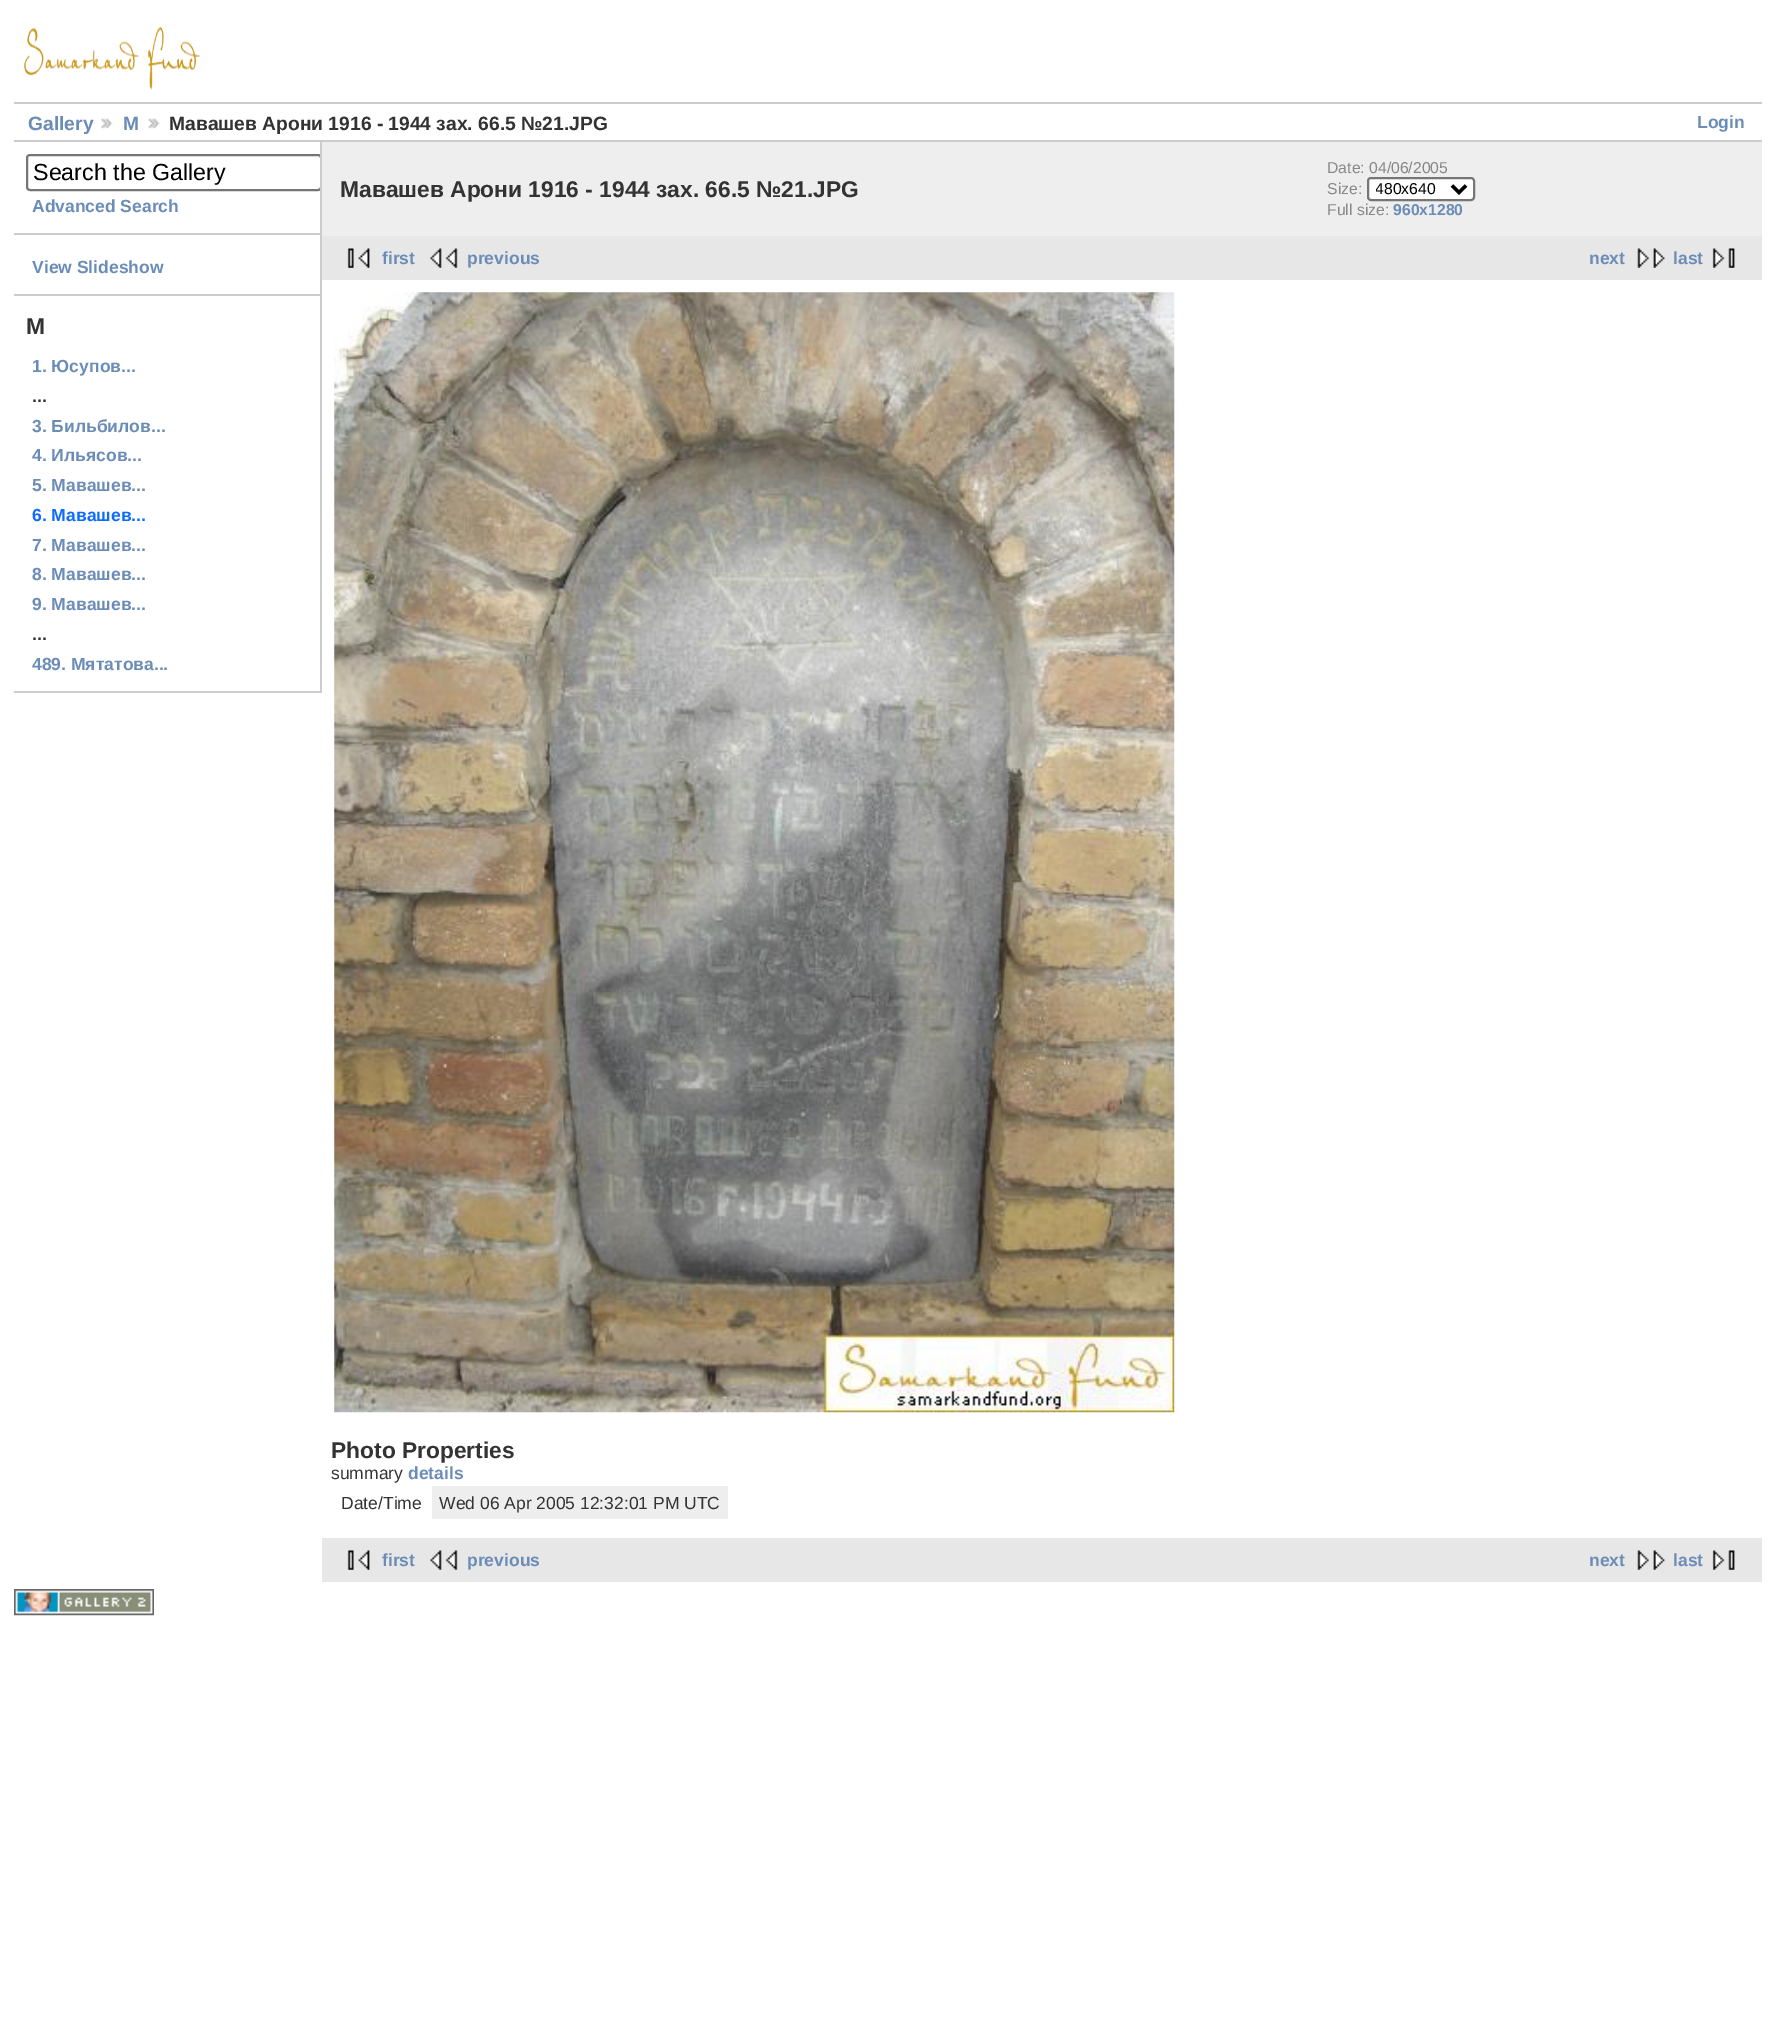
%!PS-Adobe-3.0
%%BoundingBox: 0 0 1776 2023
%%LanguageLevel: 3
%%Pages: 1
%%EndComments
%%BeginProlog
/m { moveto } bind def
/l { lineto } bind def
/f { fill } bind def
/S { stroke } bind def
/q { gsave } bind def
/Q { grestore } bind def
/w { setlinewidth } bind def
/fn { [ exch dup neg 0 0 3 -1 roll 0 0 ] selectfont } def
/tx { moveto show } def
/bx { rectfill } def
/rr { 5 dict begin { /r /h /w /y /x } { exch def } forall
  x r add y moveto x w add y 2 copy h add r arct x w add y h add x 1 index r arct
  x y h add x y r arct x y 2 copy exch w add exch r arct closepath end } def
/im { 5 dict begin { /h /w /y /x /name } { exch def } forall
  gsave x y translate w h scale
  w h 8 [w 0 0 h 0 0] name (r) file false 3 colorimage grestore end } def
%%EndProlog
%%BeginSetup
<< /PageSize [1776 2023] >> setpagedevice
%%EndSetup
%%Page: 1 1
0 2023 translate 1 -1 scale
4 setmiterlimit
1 setgray
0 0 1776 2023 bx
(image0.raw) 24 27 176 63 im
0.8 setgray
14 102 1748 2 bx
14 140 1748 2 bx
/LiberationSans-Bold 19.25 fn
0.42 0.549 0.718 setrgbcolor
(Gallery) 28 130 tx
(image1.raw) 101 118 12 11 im
(М) 123 130 tx
(image2.raw) 148 118 12 11 im
0.2 setgray
(Мавашев Арони 1916 - 1944 зах. 66.5 №21.JPG) 169 130 tx
/LiberationSans-Bold 17.5 fn
0.42 0.549 0.718 setrgbcolor
(Login) 1697 128 tx
0.8 setgray
320 142 2 551 bx
14 233 306 2 bx
q
14 142 306 551 rectclip
0.463 setgray
2 w
27 155 294 35 3 rr S
Q
/LiberationSans-Regular 23.25 fn
0 setgray
(Search the Gallery) 33 180 tx
/LiberationSans-Bold 17.5 fn
0.42 0.549 0.718 setrgbcolor
(Advanced Search) 32 212 tx
0.8 setgray
14 294 306 2 bx
0.42 0.549 0.718 setrgbcolor
(View Slideshow) 32 273 tx
0.8 setgray
14 691 306 2 bx
/LiberationSans-Bold 22.75 fn
0.2 setgray
(М) 26 334 tx
/LiberationSans-Bold 17.5 fn
0.42 0.549 0.718 setrgbcolor
(1. Юсупов...) 32 372 tx
0.2 setgray
(...) 32 402 tx
0.42 0.549 0.718 setrgbcolor
(3. Бильбилов...) 32 432 tx
(4. Ильясов...) 32 461 tx
(5. Мавашев...) 32 491 tx
0.043 0.424 1 setrgbcolor
(6. Мавашев...) 32 521 tx
0.42 0.549 0.718 setrgbcolor
(7. Мавашев...) 32 551 tx
(8. Мавашев...) 32 580 tx
(9. Мавашев...) 32 610 tx
0.2 setgray
(...) 32 640 tx
0.42 0.549 0.718 setrgbcolor
(489. Мятатова...) 32 670 tx
0.933 setgray
322 142 1440 94 bx
/LiberationSans-Bold 22.75 fn
0.2 setgray
(Мавашев Арони 1916 - 1944 зах. 66.5 №21.JPG) 340 197 tx
/LiberationSans-Regular 15.75 fn
0.533 setgray
(Date: 04/06/2005) 1327 173 tx
(Size:) 1327 194 tx
1 setgray
1368 178 106 22 3 rr q f Q
0.463 setgray
2 w
S
0 setgray
3.5 w
1452 185.5 m 1459 192.5 l 1466 185.5 l S
q
1376 179 70 21 rectclip
(480x640) 1375 194 tx
Q
0.533 setgray
(Full size:) 1327 215 tx
/LiberationSans-Bold 15.75 fn
0.42 0.549 0.718 setrgbcolor
(960x1280) 1393 215 tx
0.906 setgray
322 236 1440 44 bx
(image3.raw) 347 248 23 20 im
/LiberationSans-Bold 17.5 fn
0.42 0.549 0.718 setrgbcolor
(first) 382 264 tx
(image4.raw) 430 248 28 20 im
(previous) 467 264 tx
(next) 1589 264 tx
(image5.raw) 1637 248 28 20 im
(last) 1673 264 tx
(image6.raw) 1712 248 23 20 im
(image7.raw) 334 292 841 1121 im
/LiberationSans-Bold 22.75 fn
0.2 setgray
(Photo Properties) 331 1458 tx
/LiberationSans-Regular 17.5 fn
(summary) 331 1479 tx
/LiberationSans-Bold 17.5 fn
0.42 0.549 0.718 setrgbcolor
(details) 408 1479 tx
/LiberationSans-Regular 17.5 fn
0.2 setgray
(Date/Time) 341 1509 tx
0.933 setgray
432 1486 296 33 bx
0.2 setgray
(Wed 06 Apr 2005 12:32:01 PM UTC) 439 1509 tx
0.906 setgray
322 1538 1440 44 bx
(image3.raw) 347 1550 23 20 im
/LiberationSans-Bold 17.5 fn
0.42 0.549 0.718 setrgbcolor
(first) 382 1566 tx
(image4.raw) 430 1550 28 20 im
(previous) 467 1566 tx
(next) 1589 1566 tx
(image5.raw) 1637 1550 28 20 im
(last) 1673 1566 tx
(image6.raw) 1712 1550 23 20 im
(image8.raw) 14 1589 140 27 im
showpage
%%EOF
